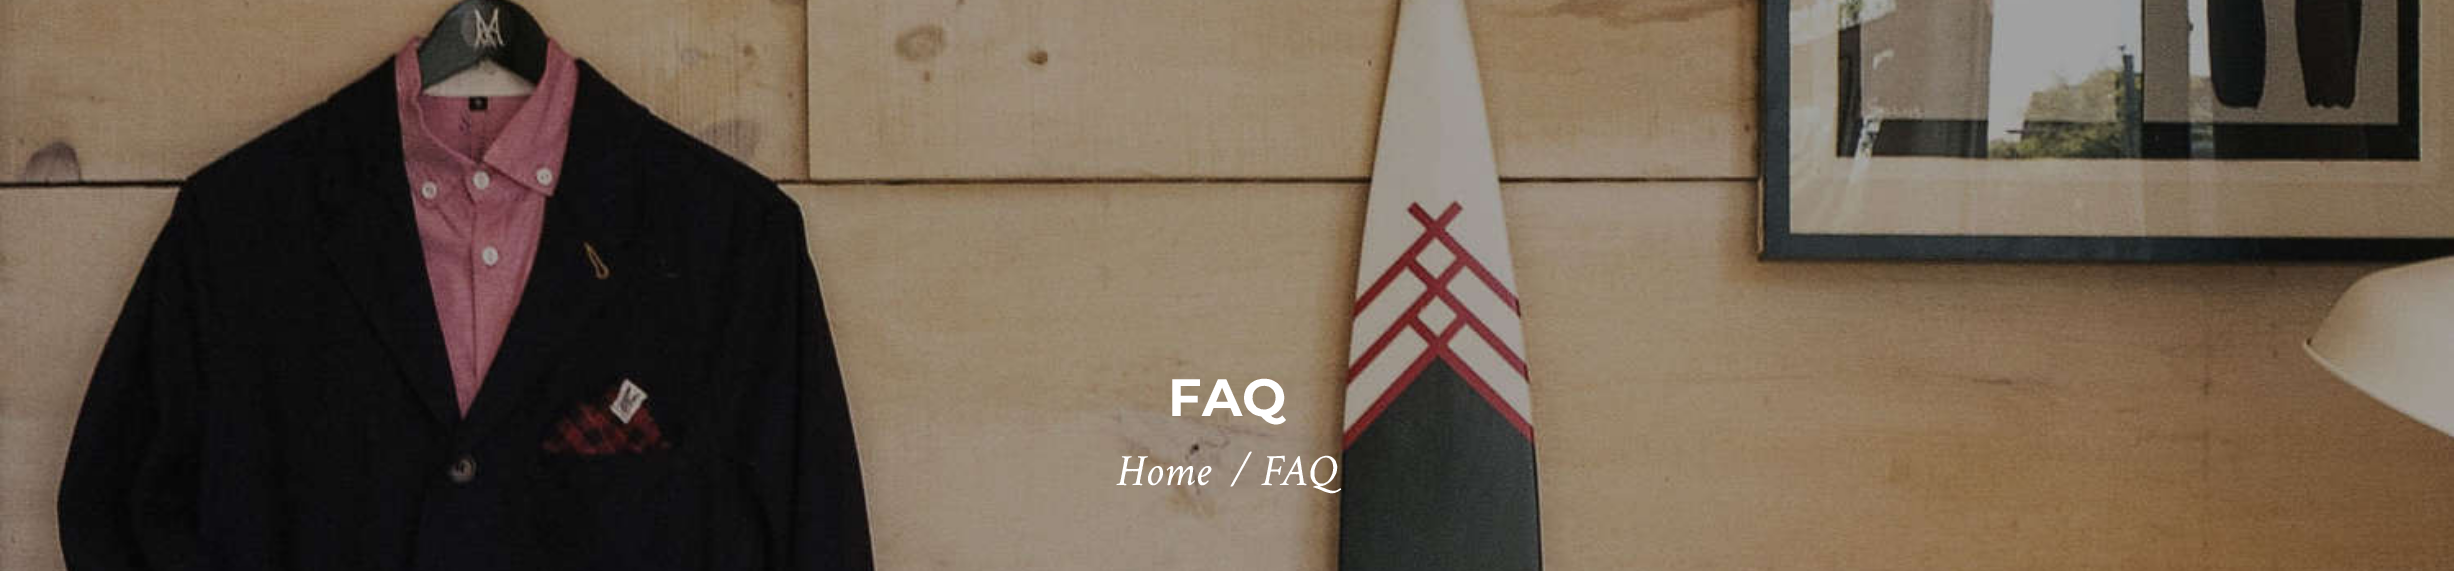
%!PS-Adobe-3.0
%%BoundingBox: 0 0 2454 571
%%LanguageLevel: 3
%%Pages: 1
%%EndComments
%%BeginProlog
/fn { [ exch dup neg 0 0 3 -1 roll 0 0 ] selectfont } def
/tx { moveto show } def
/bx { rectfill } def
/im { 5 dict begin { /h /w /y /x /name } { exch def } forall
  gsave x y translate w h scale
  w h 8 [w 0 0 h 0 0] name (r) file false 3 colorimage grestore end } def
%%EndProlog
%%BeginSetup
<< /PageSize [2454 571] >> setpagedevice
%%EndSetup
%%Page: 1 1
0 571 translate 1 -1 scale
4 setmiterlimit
1 setgray
0 0 2454 571 bx
(image0.raw) 0 0 2454 571 im
/Montserrat-Bold 52.5 fn
(FAQ) 1168 416 tx
/CrimsonText-Italic 45 fn
(Home) 1117 485 tx
(/) 1231 485 tx
(FAQ) 1262 485 tx
showpage
%%EOF
